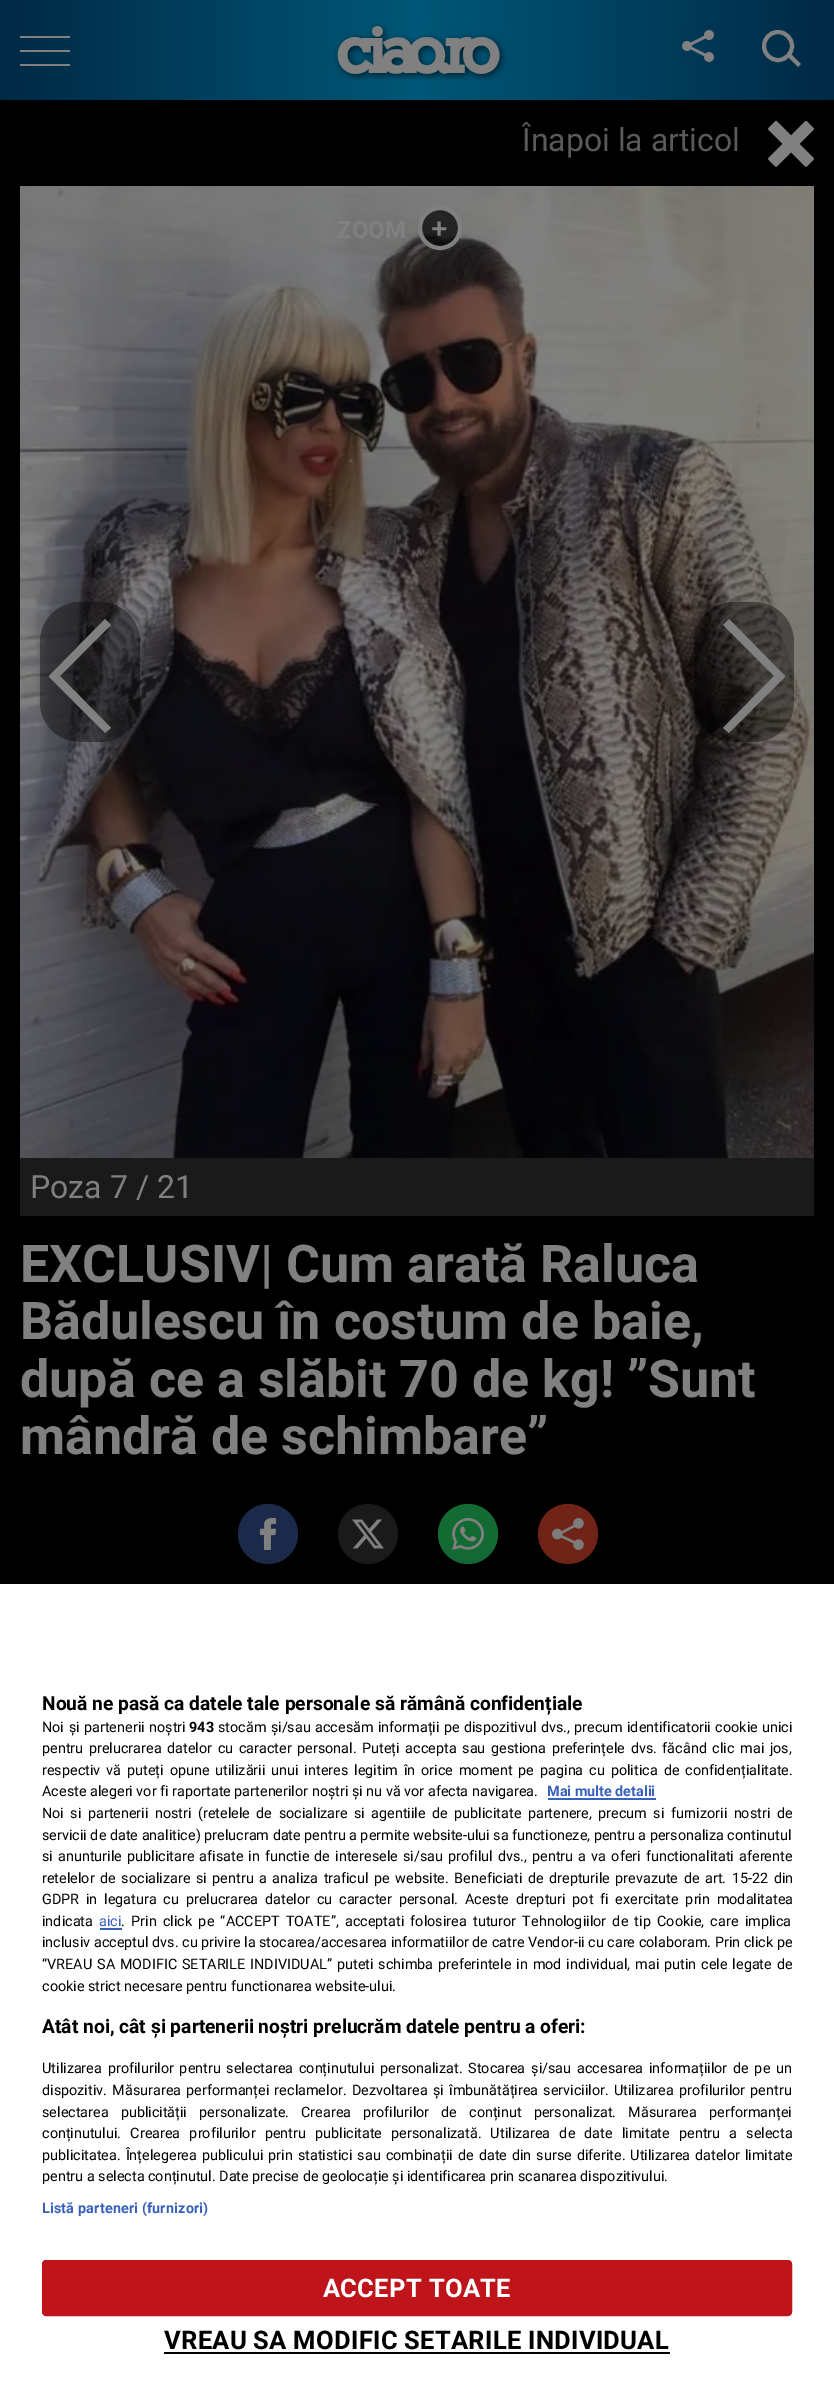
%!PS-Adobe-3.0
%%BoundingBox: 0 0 834 2397
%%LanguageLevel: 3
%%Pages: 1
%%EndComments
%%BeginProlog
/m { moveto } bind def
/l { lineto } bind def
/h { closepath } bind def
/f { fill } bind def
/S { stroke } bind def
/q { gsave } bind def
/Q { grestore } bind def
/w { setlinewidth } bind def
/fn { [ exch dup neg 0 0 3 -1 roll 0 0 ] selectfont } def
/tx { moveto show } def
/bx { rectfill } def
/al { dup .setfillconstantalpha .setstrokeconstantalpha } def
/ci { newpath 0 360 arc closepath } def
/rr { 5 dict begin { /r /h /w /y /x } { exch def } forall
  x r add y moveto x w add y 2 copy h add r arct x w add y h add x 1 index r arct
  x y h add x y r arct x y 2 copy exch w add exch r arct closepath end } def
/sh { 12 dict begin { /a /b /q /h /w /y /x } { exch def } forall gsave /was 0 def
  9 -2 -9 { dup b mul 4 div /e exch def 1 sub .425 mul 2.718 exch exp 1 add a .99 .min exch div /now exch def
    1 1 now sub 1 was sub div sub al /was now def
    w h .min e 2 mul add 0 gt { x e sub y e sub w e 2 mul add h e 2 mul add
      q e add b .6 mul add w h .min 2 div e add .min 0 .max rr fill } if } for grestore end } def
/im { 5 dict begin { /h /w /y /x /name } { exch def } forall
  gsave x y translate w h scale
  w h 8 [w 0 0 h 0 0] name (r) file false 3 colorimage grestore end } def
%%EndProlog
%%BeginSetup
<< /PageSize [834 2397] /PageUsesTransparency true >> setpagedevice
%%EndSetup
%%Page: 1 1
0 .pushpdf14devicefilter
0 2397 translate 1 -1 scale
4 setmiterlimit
1 setgray
0 0 834 2397 bx
q 0 0 m 834 0 l 834 100 l 0 100 l h clip newpath
<< /ShadingType 2 /ColorSpace /DeviceRGB /Coords [0 50 834 50] /Extend [true true] /Function << /FunctionType 3 /Domain [0 1] /Functions [<< /FunctionType 2 /Domain [0 1] /C0 [0 0.161 0.271] /C1 [0 0.341 0.471] /N 1 >> << /FunctionType 2 /Domain [0 1] /C0 [0 0.341 0.471] /C1 [0 0.161 0.271] /N 1 >>] /Bounds [0.5] /Encode [0 1 0 1] >> >> shfill Q
0.502 setgray
20 50 50 2 bx
20 36 50 2 bx
20 64 50 2 bx
(image0.raw) 334 22 174 58 im
(image1.raw) 682 30 32 32 im
4 w
778 46 14 ci S
787 56 m 790 53 l 801 64 l 798 67 l h f
0 setgray
0 100 834 1484 bx
/Roboto-Regular 32 fn
0.353 setgray
(Înapoi la articol) 522 151 tx
(image2.raw) 768 120 46 47 im
(image3.raw) 20 186 794 972 im
/Roboto-Bold 24 fn
0.502 setgray
(ZOOM) 337 238 tx
0.7 al
0 setgray
440 228 20 ci f
1 al
0.502 setgray
440 228 20 ci S
/LiberationSans-Bold 28 fn
(+) 431 238 tx
0.4 al
0 setgray
40 602 100 140 40 rr f
1 al
0.502 setgray
49 676 m 105 619 l 111 625 l 55 681 l h f
55 671 m 111 728 l 105 733 l 49 677 l h f
0.4 al
0 setgray
694 602 100 140 40 rr f
1 al
0.502 setgray
729 619 m 785 676 l 779 681 l 723 625 l h f
723 728 m 779 671 l 785 677 l 729 733 l h f
0.102 setgray
20 1158 794 58 bx
/Roboto-Regular 32 fn
0.502 setgray
(Poza 7 / 21) 30 1198 tx
/Roboto-Bold 52 fn
(EXCLUSIV| Cum arată Raluca) 20 1282 tx
(Bădulescu în costum de baie,) 20 1339 tx
(după ce a slăbit 70 de kg! ”Sunt) 20 1397 tx
(mândră de schimbare”) 20 1454 tx
0.106 0.165 0.294 setrgbcolor
268 1534 30 ci f
(image4.raw) 259 1518 18 32 im
0.102 setgray
368 1534 30 ci f
(image5.raw) 352 1519 32 30 im
0.075 0.416 0.2 setrgbcolor
468 1534 30 ci f
(image6.raw) 452 1518 32 32 im
0.439 0.137 0.09 setrgbcolor
568 1534 30 ci f
(image7.raw) 552 1518 32 32 im
0 setgray
0 1584 834 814 0 18 0.2 sh
1 setgray
0 1584 834 813 bx
/Roboto-Bold 19.2 fn
0 setgray
(Nouă ne pasă ca datele tale personale să rămână confidențiale) 42 1710 tx
/Roboto-Regular 14.4 fn
42 1732 m 1 0 32 (Noi și partenerii noștri) widthshow
/Roboto-Bold 14.4 fn
(943) 189 1732 tx
/Roboto-Regular 14.4 fn
218 1732 m 0.75 0 32 (stocăm și/sau accesăm informații pe dispozitivul dvs., precum identificatorii cookie unici) widthshow
42 1753 m 2.1 0 32 (pentru prelucrarea datelor cu caracter personal. Puteți accepta sau gestiona preferințele dvs. făcând clic mai jos,) widthshow
42 1775 m 2.4 0 32 (respectiv vă puteți opune utilizării unui interes legitim în orice moment pe pagina cu politica de confidențialitate.) widthshow
(Aceste alegeri vor fi raportate partenerilor noștri și nu vă vor afecta navigarea.) 42 1796 tx
/Roboto-Bold 14.4 fn
0.22 0.376 0.745 setrgbcolor
(Mai multe detalii) 547 1796 tx
548 1798 108 2 bx
/Roboto-Regular 14.4 fn
0 setgray
42 1818 m 2.9 0 32 (Noi si partenerii nostri \(retelele de socializare si agentiile de publicitate partenere, precum si furnizorii nostri de) widthshow
(servicii de date analitice\) prelucram date pentru a permite website-ului sa functioneze, pentru a personaliza continutul) 42 1840 tx
42 1861 m 1.6 0 32 (si anunturile publicitare afisate in functie de interesele si/sau profilul dvs., pentru a va oferi functionalitati aferente) widthshow
42 1883 m 2 0 32 (retelelor de socializare si pentru a analiza traficul pe website. Beneficiati de drepturile prevazute de art. 15-22 din) widthshow
42 1904 m 3.25 0 32 (GDPR in legatura cu prelucrarea datelor cu caracter personal. Aceste drepturi pot fi exercitate prin modalitatea) widthshow
(indicata) 42 1926 tx
0.22 0.376 0.745 setrgbcolor
(aici) 99 1926 tx
100 1928 22 2 bx
0 setgray
121 1926 m 2.75 0 32 (. Prin click pe “ACCEPT TOATE”, acceptati folosirea tuturor Tehnologiilor de tip Cookie, care implica) widthshow
(inclusiv acceptul dvs. cu privire la stocarea/accesarea informatiilor de catre Vendor-ii cu care colaboram. Prin click pe) 42 1947 tx
42 1969 m 1.4 0 32 (“VREAU SA MODIFIC SETARILE INDIVIDUAL” puteti schimba preferintele in mod individual, mai putin cele legate de) widthshow
(cookie strict necesare pentru functionarea website-ului.) 42 1991 tx
/Roboto-Bold 19.2 fn
(Atât noi, cât și partenerii noștri prelucrăm datele pentru a oferi:) 42 2033 tx
/Roboto-Regular 14.4 fn
42 2073 m 2.25 0 32 (Utilizarea profilurilor pentru selectarea conținutului personalizat. Stocarea și/sau accesarea informațiilor de pe un) widthshow
42 2095 m 1.75 0 32 (dispozitiv. Măsurarea performanței reclamelor. Dezvoltarea și îmbunătățirea serviciilor. Utilizarea profilurilor pentru) widthshow
42 2117 m 8.5 0 32 (selectarea publicității personalizate. Crearea profilurilor de conținut personalizat. Măsurarea performanței) widthshow
42 2138 m 5.6 0 32 (conținutului. Crearea profilurilor pentru publicitate personalizată. Utilizarea de date limitate pentru a selecta) widthshow
42 2160 m 1.4 0 32 (publicitatea. Înțelegerea publicului prin statistici sau combinații de date din surse diferite. Utilizarea datelor limitate) widthshow
(pentru a selecta conținutul. Date precise de geolocație și identificarea prin scanarea dispozitivului.) 42 2181 tx
/Roboto-Bold 14.4 fn
0.22 0.376 0.745 setrgbcolor
42 2213 m 0.15 0 (Listă parteneri \(furnizori\)) ashow
0.749 0.078 0.102 setrgbcolor
43 2261 748 54 3 rr q f Q
2 w
S
/Roboto-Bold 25.6 fn
1 setgray
323 2297 m 0.25 0 (ACCEPT TOATE) ashow
0 setgray
164 2349 m 0.25 0 (VREAU SA MODIFIC SETARILE INDIVIDUAL) ashow
164 2352 506 2 bx
.poppdf14devicefilter showpage
%%EOF
